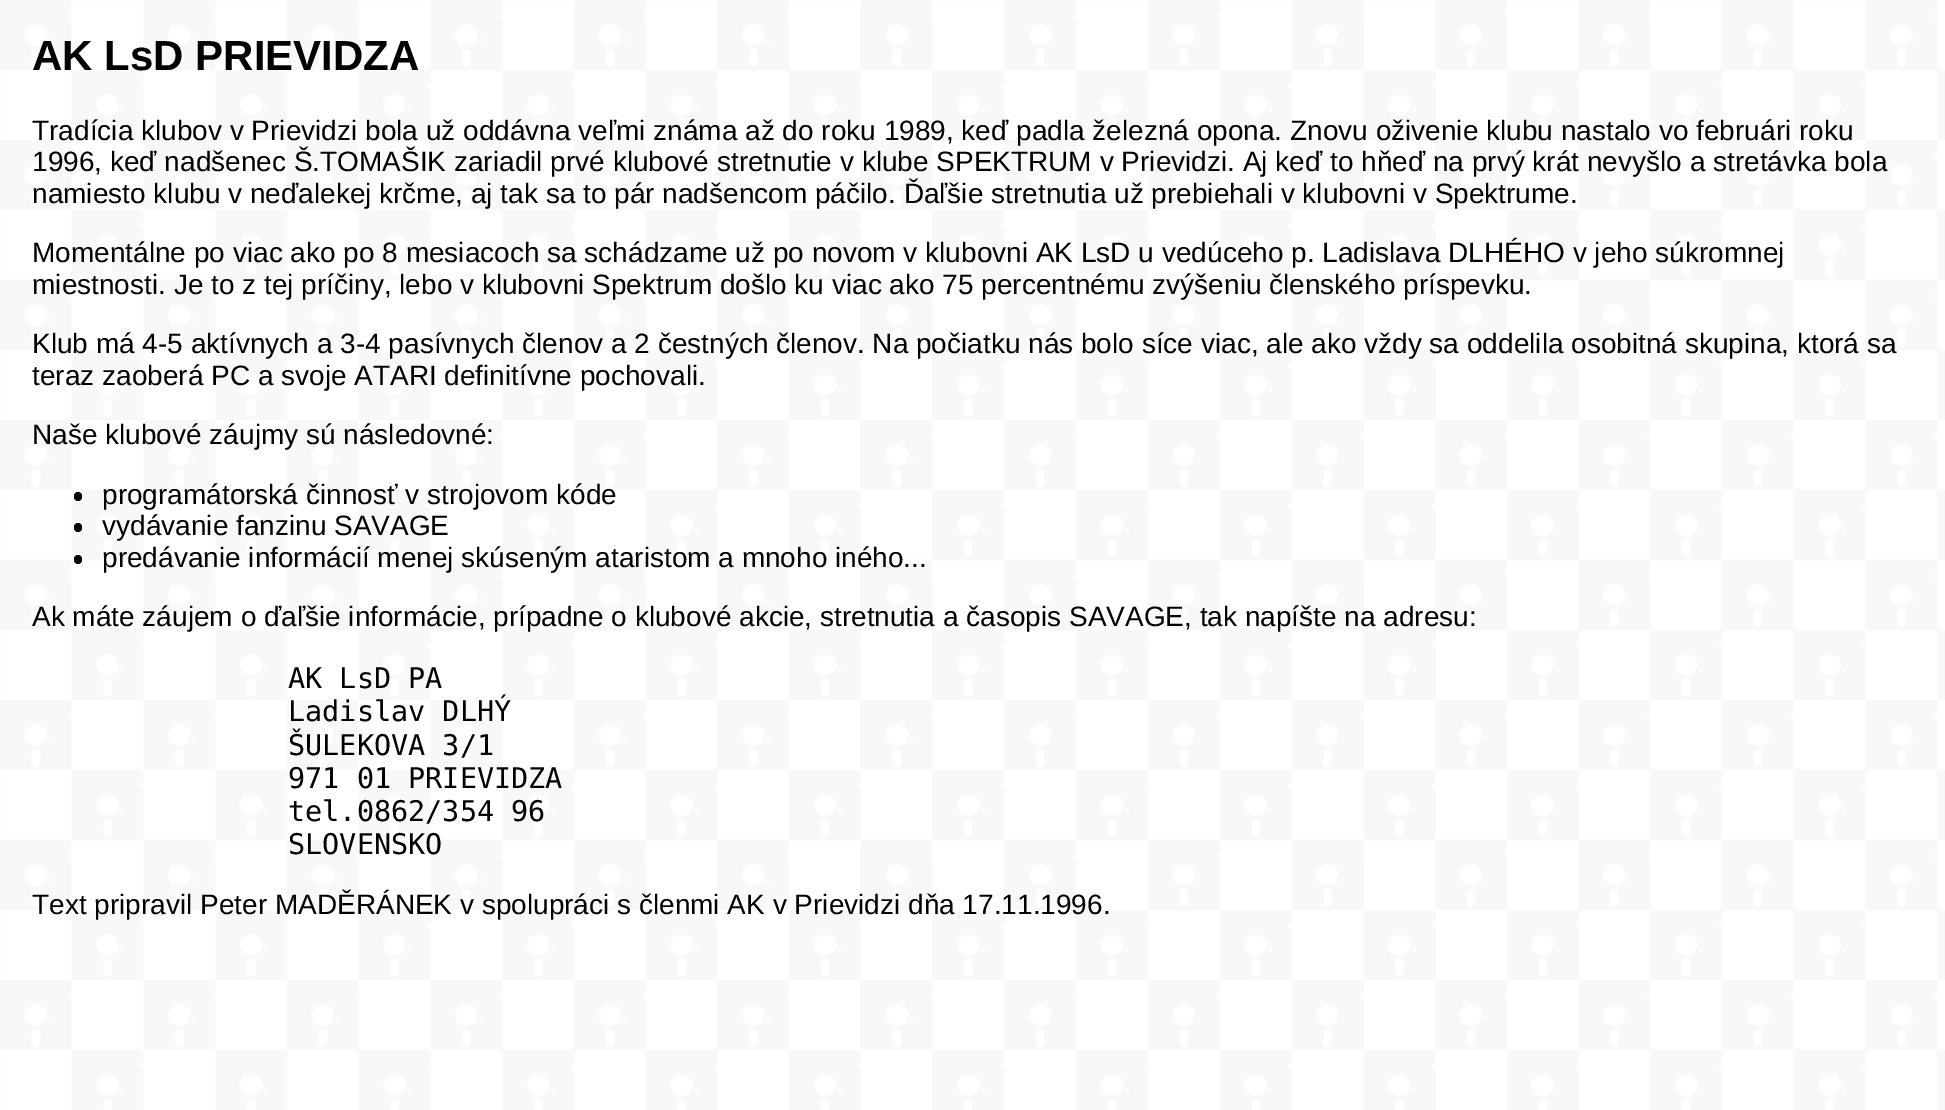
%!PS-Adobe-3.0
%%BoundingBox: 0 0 1945 1110
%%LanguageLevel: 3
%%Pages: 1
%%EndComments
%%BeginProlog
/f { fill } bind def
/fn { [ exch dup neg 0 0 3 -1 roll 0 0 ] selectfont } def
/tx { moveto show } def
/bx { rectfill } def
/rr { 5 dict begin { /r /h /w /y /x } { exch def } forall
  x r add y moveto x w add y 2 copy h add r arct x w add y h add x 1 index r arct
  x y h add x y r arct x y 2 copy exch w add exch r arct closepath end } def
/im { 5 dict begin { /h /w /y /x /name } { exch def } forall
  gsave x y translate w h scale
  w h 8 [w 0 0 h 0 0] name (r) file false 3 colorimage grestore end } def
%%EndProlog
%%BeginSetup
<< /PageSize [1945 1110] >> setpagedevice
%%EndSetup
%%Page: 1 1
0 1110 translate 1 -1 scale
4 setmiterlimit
1 setgray
0 0 1945 1110 bx
(image0.raw) 0 0 1945 1110 im
/LiberationSans-Bold 42 fn
0 setgray
(AK LsD PRIEVIDZA) 32 70 tx
/LiberationSans-Regular 28 fn
(Tradícia klubov v Prievidzi bola už oddávna veľmi známa až do roku 1989, keď padla železná opona. Znovu oživenie klubu nastalo vo februári roku) 32 140 tx
(1996, keď nadšenec Š.TOMAŠIK zariadil prvé klubové stretnutie v klube SPEKTRUM v Prievidzi. Aj keď to hňeď na prvý krát nevyšlo a stretávka bola) 32 171 tx
(namiesto klubu v neďalekej krčme, aj tak sa to pár nadšencom páčilo. Ďaľšie stretnutia už prebiehali v klubovni v Spektrume.) 32 203 tx
(Momentálne po viac ako po 8 mesiacoch sa schádzame už po novom v klubovni AK LsD u vedúceho p. Ladislava DLHÉHO v jeho súkromnej) 32 262 tx
(miestnosti. Je to z tej príčiny, lebo v klubovni Spektrum došlo ku viac ako 75 percentnému zvýšeniu členského príspevku.) 32 294 tx
(Klub má 4-5 aktívnych a 3-4 pasívnych členov a 2 čestných členov. Na počiatku nás bolo síce viac, ale ako vždy sa oddelila osobitná skupina, ktorá sa) 32 353 tx
(teraz zaoberá PC a svoje ATARI definitívne pochovali.) 32 385 tx
(Naše klubové záujmy sú následovné:) 32 444 tx
74 492 8 9 4 rr f
(programátorská činnosť v strojovom kóde) 102 504 tx
74 523 8 9 4 rr f
(vydávanie fanzinu SAVAGE) 102 535 tx
74 555 8 9 4 rr f
(predávanie informácií menej skúseným ataristom a mnoho iného...) 102 567 tx
(Ak máte záujem o ďaľšie informácie, prípadne o klubové akcie, stretnutia a časopis SAVAGE, tak napíšte na adresu:) 32 626 tx
/DejaVuSansMono-Regular 28.5 fn
(AK LsD PA) 288 688 tx
(Ladislav DLHÝ) 288 721 tx
(ŠULEKOVA 3/1) 288 755 tx
(971 01 PRIEVIDZA) 288 788 tx
(tel.0862/354 96) 288 821 tx
(SLOVENSKO) 288 854 tx
/LiberationSans-Regular 28 fn
(Text pripravil Peter MADĚRÁNEK v spolupráci s členmi AK v Prievidzi dňa 17.11.1996.) 32 914 tx
showpage
%%EOF
